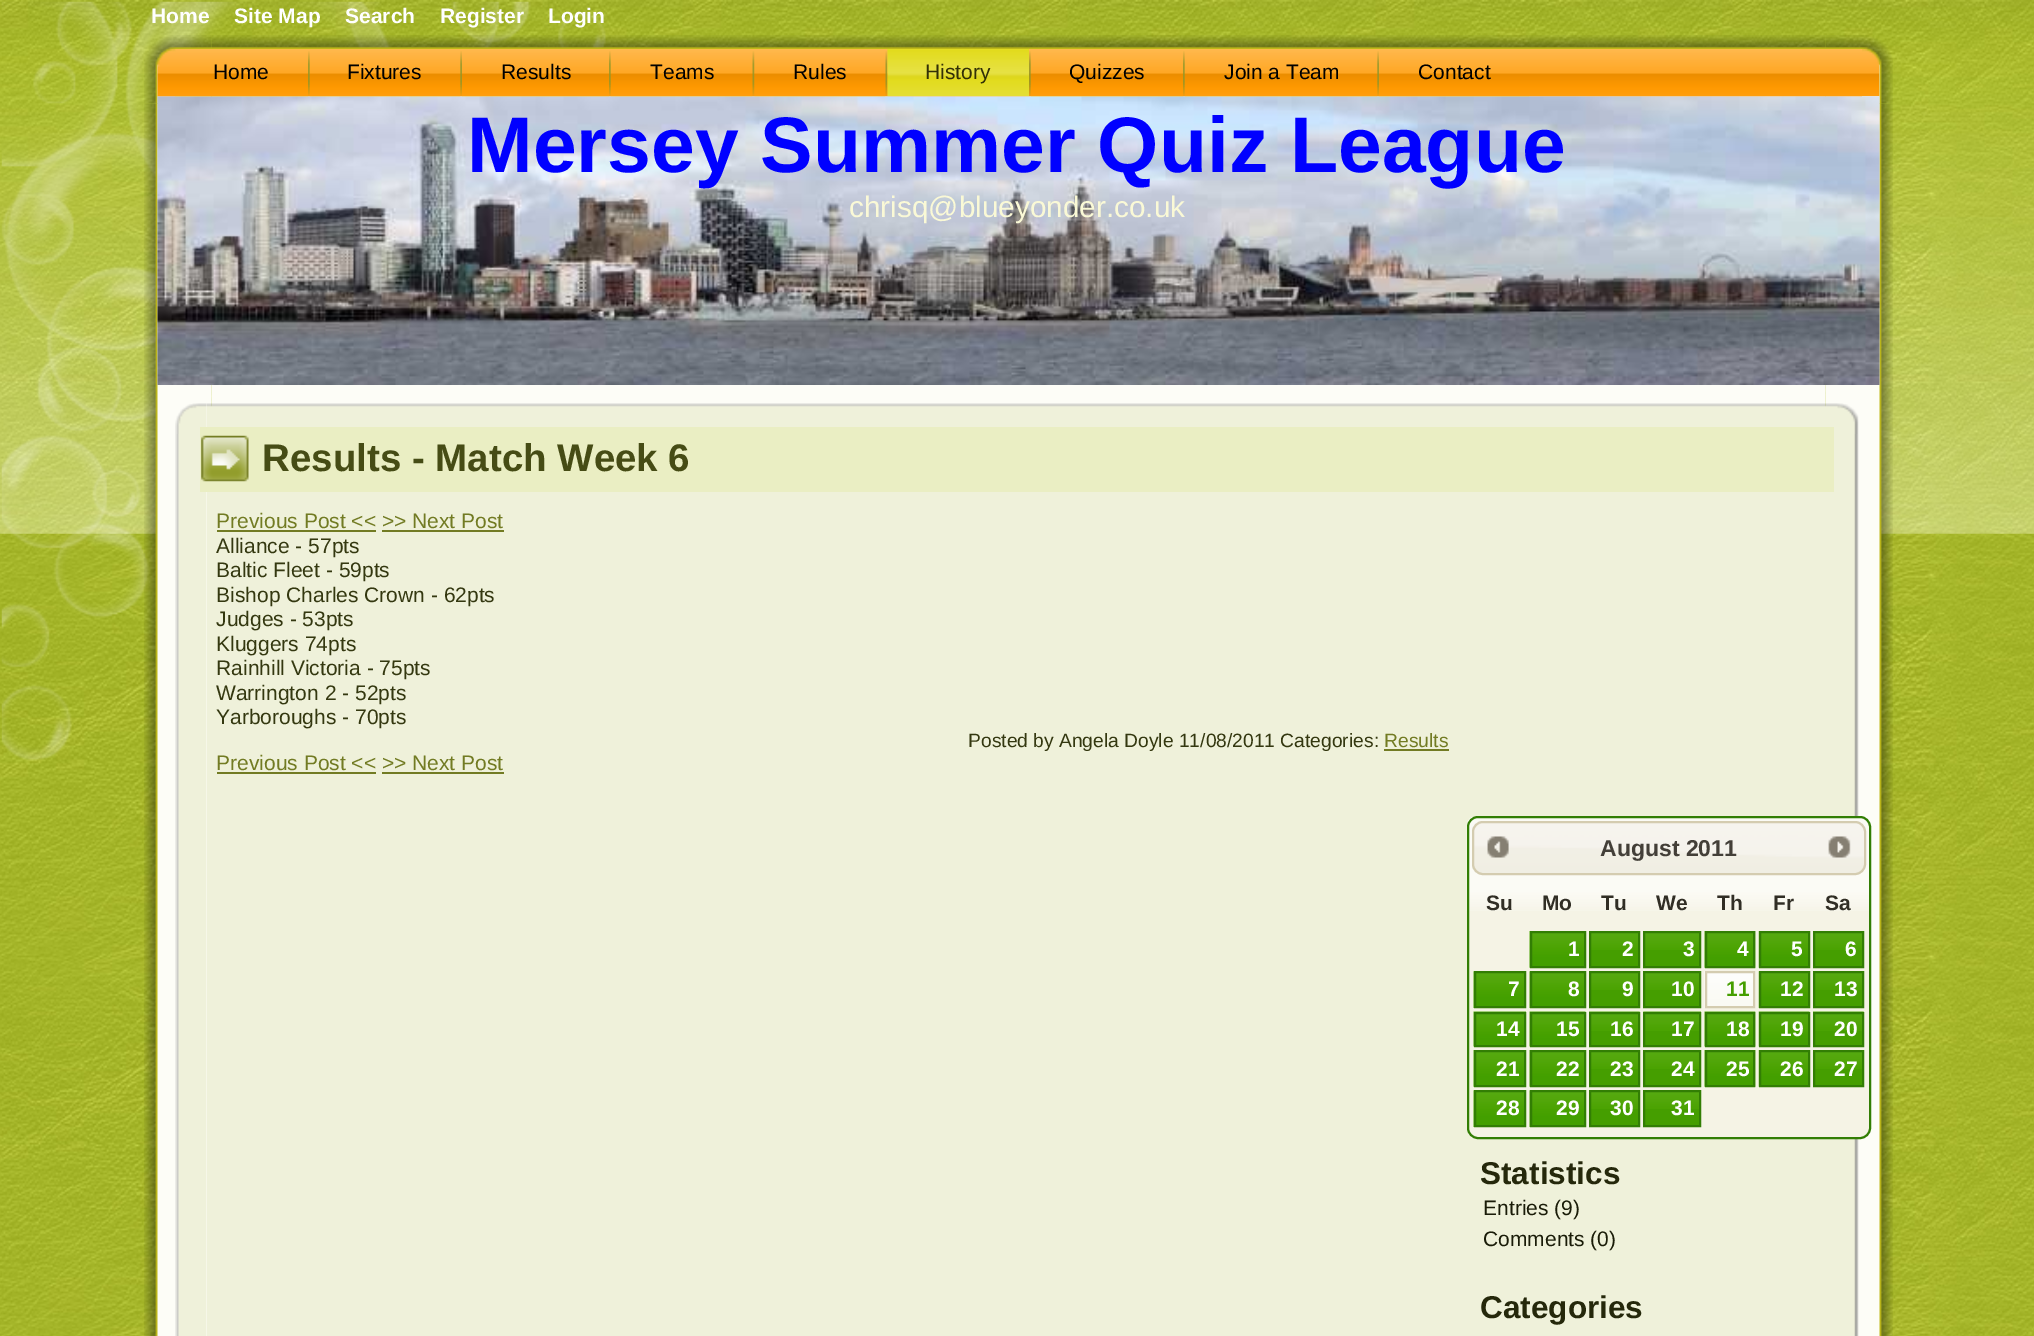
%!PS-Adobe-3.0
%%BoundingBox: 0 0 2034 1336
%%LanguageLevel: 3
%%Pages: 1
%%EndComments
%%BeginProlog
/f { fill } bind def
/S { stroke } bind def
/w { setlinewidth } bind def
/fn { [ exch dup neg 0 0 3 -1 roll 0 0 ] selectfont } def
/tx { moveto show } def
/bx { rectfill } def
/al { dup .setfillconstantalpha .setstrokeconstantalpha } def
/rr { 5 dict begin { /r /h /w /y /x } { exch def } forall
  x r add y moveto x w add y 2 copy h add r arct x w add y h add x 1 index r arct
  x y h add x y r arct x y 2 copy exch w add exch r arct closepath end } def
/im { 5 dict begin { /h /w /y /x /name } { exch def } forall
  gsave x y translate w h scale
  w h 8 [w 0 0 h 0 0] name (r) file false 3 colorimage grestore end } def
%%EndProlog
%%BeginSetup
<< /PageSize [2034 1336] /PageUsesTransparency true >> setpagedevice
%%EndSetup
%%Page: 1 1
0 .pushpdf14devicefilter
0 1336 translate 1 -1 scale
4 setmiterlimit
1 setgray
0 0 2034 1336 bx
(image0.raw) 0 533 2034 803 im
(image1.raw) 0 0 2034 534 im
(image2.raw) 1 1 605 760 im
/LiberationSans-Bold 21 fn
(Home) 151 23 tx
(Site Map) 234 23 tx
(Search) 345 23 tx
(Register) 440 23 tx
(Login) 548 23 tx
(image3.raw) 144 35 68 69 im
(image5.raw) 1825 35 68 69 im
(image4.raw) 211 35 1615 62 im
(image6.raw) 144 103 68 1233 im
(image45.raw) 1825 103 68 1233 im
(image16.raw) 157 96 1723 289 im
(image7.raw) 157 49 1705 48 im
(image8.raw) 1862 49 18 48 im
/LiberationSans-Regular 21 fn
0 setgray
(Home) 213 79 tx
0.16 al
0.875 0.851 0.102 setrgbcolor
175 96 133 1 bx
1 al
(image9.raw) 308 51 2 45 im
0 setgray
(Fixtures) 347 79 tx
0.16 al
0.875 0.851 0.102 setrgbcolor
310 96 150 1 bx
1 al
(image10.raw) 460 51 2 45 im
0 setgray
(Results) 501 79 tx
0.16 al
0.875 0.851 0.102 setrgbcolor
462 96 147 1 bx
1 al
(image9.raw) 609 51 2 45 im
0 setgray
(Teams) 650 79 tx
(image11.raw) 611 96 142 1 im
(image12.raw) 752 51 3 45 im
(Rules) 793 79 tx
(image13.raw) 754 96 132 1 im
(image12.raw) 885 51 3 45 im
(image14.raw) 887 49 142 48 im
0.196 0.188 0.024 setrgbcolor
(History) 925 79 tx
(image9.raw) 1029 51 2 45 im
0 setgray
(Quizzes) 1069 79 tx
0.16 al
0.875 0.851 0.102 setrgbcolor
1031 96 152 1 bx
1 al
(image9.raw) 1183 51 2 45 im
0 setgray
(Join a Team) 1224 79 tx
0.16 al
0.875 0.851 0.102 setrgbcolor
1185 96 192 1 bx
1 al
(image10.raw) 1377 51 2 45 im
0 setgray
(Contact) 1418 79 tx
(image15.raw) 1379 96 151 1 im
/LiberationSans-Bold 78.75 fn
0 0 1 setrgbcolor
(Mersey Summer Quiz League) 467 172 tx
/LiberationSans-Regular 29.75 fn
0.98 0.976 0.839 setrgbcolor
(chrisq@blueyonder.co.uk) 849 217 tx
(image17.raw) 175 403 32 31 im
0.992 0.992 0.969 setrgbcolor
212 385 1613 22 bx
(image18.raw) 206 403 1621 24 im
(image19.raw) 1827 403 32 31 im
(image20.raw) 175 434 32 902 im
(image21.raw) 1827 434 32 902 im
0.918 0.933 0.765 setrgbcolor
200 427 1634 65 bx
(image22.raw) 201 435 48 47 im
/LiberationSans-Bold 38.5 fn
0.275 0.298 0.082 setrgbcolor
(Results - Match Week 6) 262 471 tx
0.937 0.945 0.855 setrgbcolor
207 492 1620 844 bx
/LiberationSans-Regular 21 fn
0.447 0.482 0.137 setrgbcolor
(Previous Post << >> Next Post) 216 528 tx
217 530 159 2 bx
382 530 122 2 bx
0.204 0.22 0.063 setrgbcolor
(Alliance - 57pts) 216 553 tx
(Baltic Fleet - 59pts) 216 577 tx
(Bishop Charles Crown - 62pts) 216 602 tx
(Judges - 53pts) 216 626 tx
(Kluggers 74pts) 216 651 tx
(Rainhill Victoria - 75pts) 216 675 tx
(Warrington 2 - 52pts) 216 700 tx
(Yarboroughs - 70pts) 216 724 tx
/LiberationSans-Regular 19.25 fn
(Posted by Angela Doyle 11/08/2011 Categories:) 968 747 tx
0.447 0.482 0.137 setrgbcolor
(Results) 1384 747 tx
1384 749 65 2 bx
/LiberationSans-Regular 21 fn
(Previous Post << >> Next Post) 216 770 tx
217 772 159 2 bx
382 772 122 2 bx
0.961 0.953 0.898 setrgbcolor
1467 816 404 323 11 rr f
(image23.raw) 1466 817 405 94 im
0.196 0.494 0.016 setrgbcolor
2 w
1468 817 402 321 10 rr S
(image24.raw) 1472 821 394 54 im
0.831 0.8 0.69 setrgbcolor
1473 822 392 52 10 rr S
(image25.raw) 1487 836 22 22 im
/LiberationSans-Bold 23 fn
0.263 0.247 0.22 setrgbcolor
(August 2011) 1600 856 tx
(image26.raw) 1828 836 23 22 im
/LiberationSans-Bold 21 fn
0.192 0.18 0.145 setrgbcolor
(Su) 1486 910 tx
(Mo) 1542 910 tx
(Tu) 1601 910 tx
(We) 1656 910 tx
(Th) 1717 910 tx
(Fr) 1773 910 tx
(Sa) 1825 910 tx
(image27.raw) 1529 931 55 37 im
0.196 0.494 0.016 setrgbcolor
1531 932 54 35 rectstroke
1 setgray
(1) 1568 956 tx
0.271 0.62 0 setrgbcolor
1591 950 47 16 bx
(image28.raw) 1591 933 47 17 im
0.196 0.494 0.016 setrgbcolor
1590 932 49 35 rectstroke
1 setgray
(2) 1622 956 tx
0.271 0.62 0 setrgbcolor
1645 950 54 16 bx
(image29.raw) 1645 933 54 17 im
0.196 0.494 0.016 setrgbcolor
1644 932 56 35 rectstroke
1 setgray
(3) 1683 956 tx
(image30.raw) 1704 931 52 37 im
0.196 0.494 0.016 setrgbcolor
1706 932 48 35 rectstroke
1 setgray
(4) 1737 956 tx
(image31.raw) 1758 931 50 37 im
0.196 0.494 0.016 setrgbcolor
1760 932 49 35 rectstroke
1 setgray
(5) 1791 956 tx
0.271 0.62 0 setrgbcolor
1815 950 47 16 bx
(image28.raw) 1815 933 47 17 im
0.196 0.494 0.016 setrgbcolor
1814 932 49 35 rectstroke
1 setgray
(6) 1845 956 tx
(image32.raw) 1473 971 51 37 im
0.196 0.494 0.016 setrgbcolor
1475 972 50 35 rectstroke
1 setgray
(7) 1508 996 tx
(image33.raw) 1529 971 55 37 im
0.196 0.494 0.016 setrgbcolor
1531 972 54 35 rectstroke
1 setgray
(8) 1568 996 tx
0.271 0.62 0 setrgbcolor
1591 990 47 16 bx
(image34.raw) 1591 973 47 17 im
0.196 0.494 0.016 setrgbcolor
1590 972 49 35 rectstroke
1 setgray
(9) 1622 996 tx
0.271 0.62 0 setrgbcolor
1645 990 54 16 bx
(image35.raw) 1645 973 54 17 im
0.196 0.494 0.016 setrgbcolor
1644 972 56 35 rectstroke
1 setgray
(10) 1671 996 tx
(image36.raw) 1704 971 52 37 im
0.831 0.8 0.69 setrgbcolor
1706 972 48 35 rectstroke
0.271 0.62 0 setrgbcolor
(11) 1726 996 tx
(image37.raw) 1758 971 50 37 im
0.196 0.494 0.016 setrgbcolor
1760 972 49 35 rectstroke
1 setgray
(12) 1780 996 tx
0.271 0.62 0 setrgbcolor
1815 990 47 16 bx
(image34.raw) 1815 973 47 17 im
0.196 0.494 0.016 setrgbcolor
1814 972 49 35 rectstroke
1 setgray
(13) 1834 996 tx
(image38.raw) 1473 1011 53 36 im
0.196 0.494 0.016 setrgbcolor
1475 1013 50 33 rectstroke
1 setgray
(14) 1496 1036 tx
(image39.raw) 1529 1011 57 36 im
0.196 0.494 0.016 setrgbcolor
1531 1013 54 33 rectstroke
1 setgray
(15) 1556 1036 tx
0.271 0.62 0 setrgbcolor
1591 1031 47 14 bx
(image40.raw) 1589 1011 51 20 im
0.196 0.494 0.016 setrgbcolor
1590 1013 49 33 rectstroke
1 setgray
(16) 1610 1036 tx
0.271 0.62 0 setrgbcolor
1645 1031 54 14 bx
(image41.raw) 1643 1011 58 20 im
0.196 0.494 0.016 setrgbcolor
1644 1013 56 33 rectstroke
1 setgray
(17) 1671 1036 tx
(image42.raw) 1704 1011 52 36 im
0.196 0.494 0.016 setrgbcolor
1706 1013 48 33 rectstroke
1 setgray
(18) 1726 1036 tx
(image43.raw) 1758 1011 52 36 im
0.196 0.494 0.016 setrgbcolor
1760 1013 49 33 rectstroke
1 setgray
(19) 1780 1036 tx
0.271 0.62 0 setrgbcolor
1815 1031 47 14 bx
(image40.raw) 1813 1011 51 20 im
0.196 0.494 0.016 setrgbcolor
1814 1013 49 33 rectstroke
1 setgray
(20) 1834 1036 tx
(image44.raw) 1473 1050 51 37 im
0.196 0.494 0.016 setrgbcolor
1475 1051 50 35 rectstroke
1 setgray
(21) 1496 1076 tx
(image27.raw) 1529 1050 55 37 im
0.196 0.494 0.016 setrgbcolor
1531 1051 54 35 rectstroke
1 setgray
(22) 1556 1076 tx
0.271 0.62 0 setrgbcolor
1591 1069 47 16 bx
(image28.raw) 1591 1052 47 17 im
0.196 0.494 0.016 setrgbcolor
1590 1051 49 35 rectstroke
1 setgray
(23) 1610 1076 tx
0.271 0.62 0 setrgbcolor
1645 1069 54 16 bx
(image29.raw) 1645 1052 54 17 im
0.196 0.494 0.016 setrgbcolor
1644 1051 56 35 rectstroke
1 setgray
(24) 1671 1076 tx
(image30.raw) 1704 1050 52 37 im
0.196 0.494 0.016 setrgbcolor
1706 1051 48 35 rectstroke
1 setgray
(25) 1726 1076 tx
(image31.raw) 1758 1050 50 37 im
0.196 0.494 0.016 setrgbcolor
1760 1051 49 35 rectstroke
1 setgray
(26) 1780 1076 tx
0.271 0.62 0 setrgbcolor
1815 1069 47 16 bx
(image28.raw) 1815 1052 47 17 im
0.196 0.494 0.016 setrgbcolor
1814 1051 49 35 rectstroke
1 setgray
(27) 1834 1076 tx
(image32.raw) 1473 1090 51 37 im
0.196 0.494 0.016 setrgbcolor
1475 1091 50 35 rectstroke
1 setgray
(28) 1496 1115 tx
(image33.raw) 1529 1090 55 37 im
0.196 0.494 0.016 setrgbcolor
1531 1091 54 35 rectstroke
1 setgray
(29) 1556 1115 tx
0.271 0.62 0 setrgbcolor
1591 1109 47 16 bx
(image34.raw) 1591 1092 47 17 im
0.196 0.494 0.016 setrgbcolor
1590 1091 49 35 rectstroke
1 setgray
(30) 1610 1115 tx
0.271 0.62 0 setrgbcolor
1645 1109 54 16 bx
(image35.raw) 1645 1092 54 17 im
0.196 0.494 0.016 setrgbcolor
1644 1091 56 35 rectstroke
1 setgray
(31) 1671 1115 tx
/LiberationSans-Bold 31.5 fn
0.145 0.157 0.043 setrgbcolor
(Statistics) 1480 1184 tx
/LiberationSans-Regular 21 fn
0.102 0.11 0.031 setrgbcolor
(Entries \(9\)) 1483 1215 tx
(Comments \(0\)) 1483 1246 tx
/LiberationSans-Bold 31.5 fn
0.145 0.157 0.043 setrgbcolor
(Categories) 1480 1318 tx
.poppdf14devicefilter showpage
%%EOF
